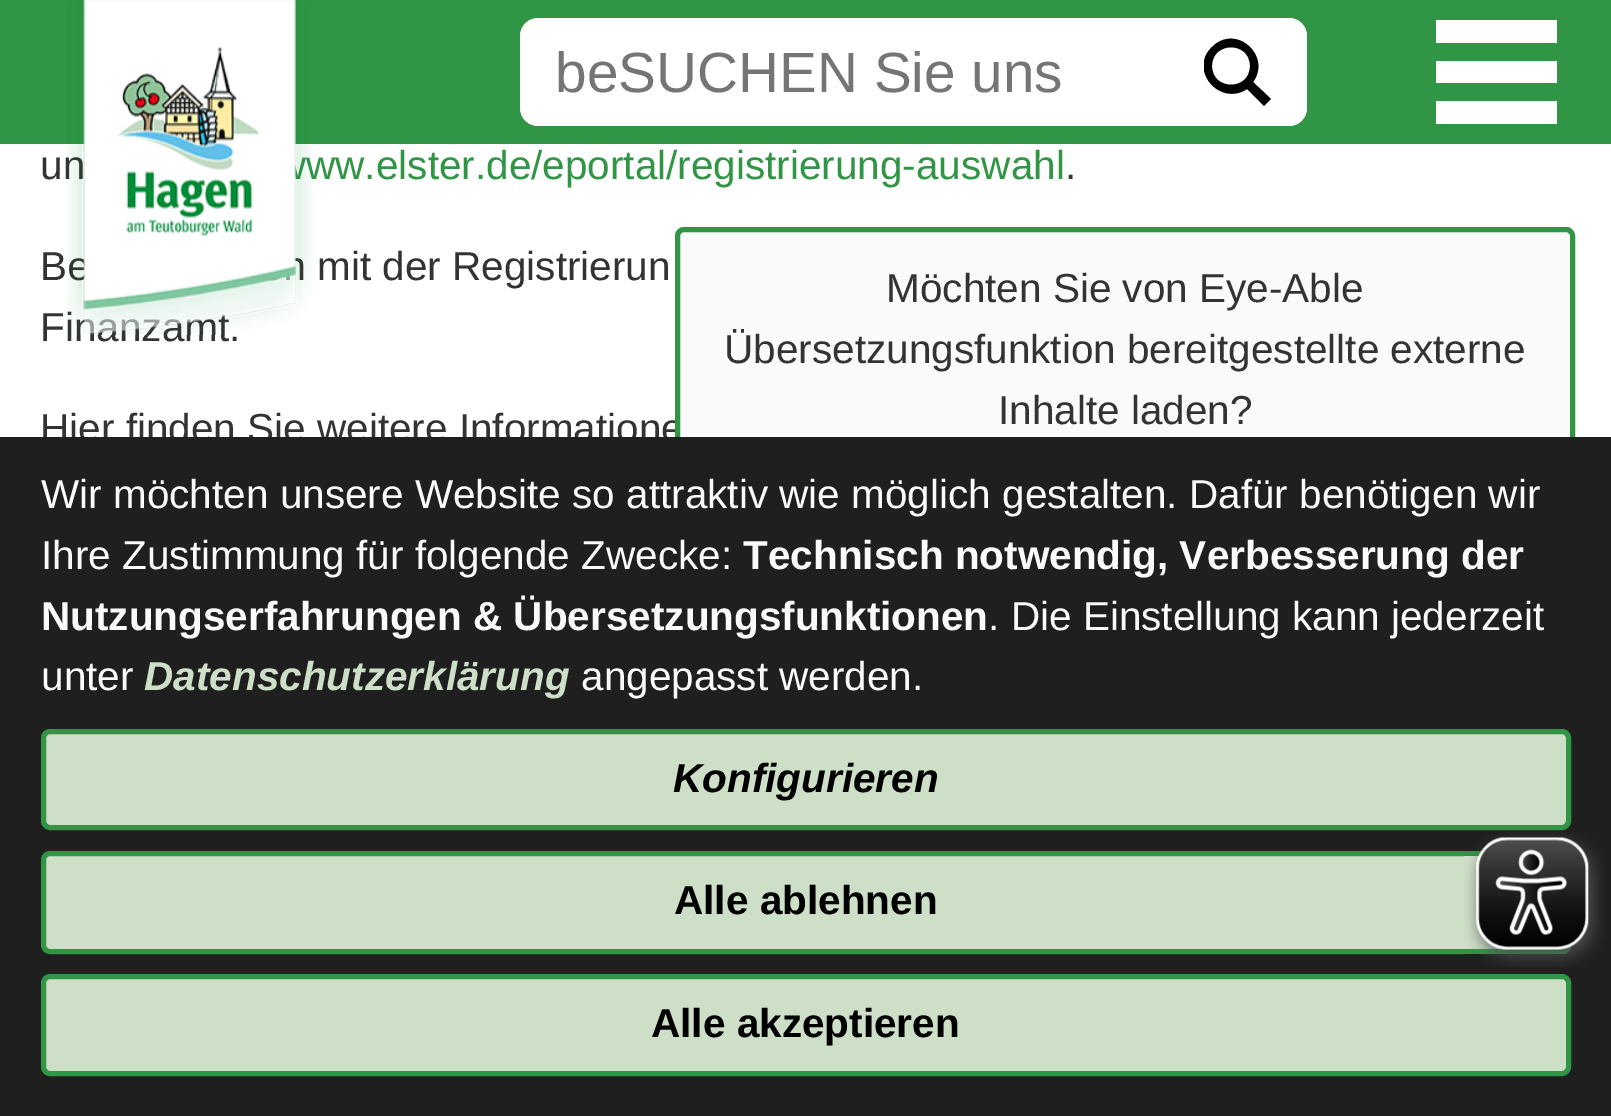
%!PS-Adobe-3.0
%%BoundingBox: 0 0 1611 1116
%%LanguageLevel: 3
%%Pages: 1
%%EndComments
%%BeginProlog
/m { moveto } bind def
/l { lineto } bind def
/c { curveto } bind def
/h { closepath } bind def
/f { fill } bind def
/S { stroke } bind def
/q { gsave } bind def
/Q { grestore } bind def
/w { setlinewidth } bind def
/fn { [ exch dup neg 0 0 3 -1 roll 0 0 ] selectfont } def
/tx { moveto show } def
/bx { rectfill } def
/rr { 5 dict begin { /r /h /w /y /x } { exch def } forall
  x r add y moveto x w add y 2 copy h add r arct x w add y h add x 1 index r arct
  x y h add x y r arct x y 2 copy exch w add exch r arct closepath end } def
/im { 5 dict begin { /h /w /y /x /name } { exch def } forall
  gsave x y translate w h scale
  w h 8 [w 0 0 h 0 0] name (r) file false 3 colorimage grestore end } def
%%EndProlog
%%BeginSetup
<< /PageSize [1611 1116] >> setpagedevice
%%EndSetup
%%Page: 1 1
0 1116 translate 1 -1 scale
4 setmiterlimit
1 setgray
0 0 1611 1116 bx
0.188 0.584 0.271 setrgbcolor
0 0 1611 144 bx
/LiberationSans-Regular 40.5 fn
0.2 setgray
(un) 40 179 tx
0.188 0.584 0.271 setrgbcolor
(ww.elster.de/eportal/registrierung-auswahl) 306 179 tx
0.2 setgray
(Finanzamt.) 40 341 tx
(image0.raw) 66 0 247 335 im
1 setgray
520 18 787 108 18 rr f
/LiberationSans-Regular 56.75 fn
0.459 setgray
(beSUCHEN Sie uns) 555 92 tx
q
1204 18 67 108 rectclip
0 setgray
1271 99 m 1253 82 l 1272 56 1236 23 1212 47 c 1188 70 1220 107 1247 89 c 1264 106 l h 1212 66 m 1212 41 1250 41 1250 66 c 1250 91 1212 91 1212 66 c h f
Q
/LiberationSans-Regular 40.5 fn
0.2 setgray
(.) 1065 179 tx
(B) 40 280 tx
(mit der Registrierun) 317 280 tx
(Hier finden Sie weitere Informatione) 40 442 tx
1 setgray
1436 61 121 22 bx
1436 20 121 23 bx
1436 101 121 23 bx
0.98 setgray
677.5 229.5 895 371 6.5 rr q f Q
0.188 0.584 0.271 setrgbcolor
5 w
S
0.2 setgray
(Möchten Sie von Eye-Able) 886 302 tx
(Übersetzungsfunktion bereitgestellte externe) 724 363 tx
(Inhalte laden?) 998 424 tx
0.122 setgray
0 437 1611 679 bx
0.98 setgray
(Wir möchten unsere Website so attraktiv wie möglich gestalten. Dafür benötigen wir) 41 508 tx
(Ihre Zustimmung für folgende Zwecke:) 41 569 tx
/LiberationSans-Bold 40.5 fn
(Technisch notwendig, Verbesserung der) 743 569 tx
(Nutzungserfahrungen & Übersetzungsfunktionen) 41 630 tx
/LiberationSans-Regular 40.5 fn
(. Die Einstellung kann jederzeit) 988 630 tx
(unter) 41 690 tx
/LiberationSans-BoldItalic 40.5 fn
0.808 0.875 0.784 setrgbcolor
(Datenschutzerklärung) 144 690 tx
/LiberationSans-Regular 40.5 fn
0.98 setgray
(angepasst werden.) 581 690 tx
0.808 0.875 0.784 setrgbcolor
43.5 731.5 1525 96 6.5 rr q f Q
0.188 0.584 0.271 setrgbcolor
S
/LiberationSans-BoldItalic 40.5 fn
0 setgray
(Konfigurieren) 673 792 tx
0.808 0.875 0.784 setrgbcolor
43.5 853.5 1525 98 6.5 rr q f Q
0.188 0.584 0.271 setrgbcolor
S
/LiberationSans-Bold 40.5 fn
0 setgray
(Alle ablehnen) 674 914 tx
0.808 0.875 0.784 setrgbcolor
43.5 976.5 1525 97 6.5 rr q f Q
0.188 0.584 0.271 setrgbcolor
S
0 setgray
(Alle akzeptieren) 651 1037 tx
(image1.raw) 1464 832 141 136 im
showpage
%%EOF
